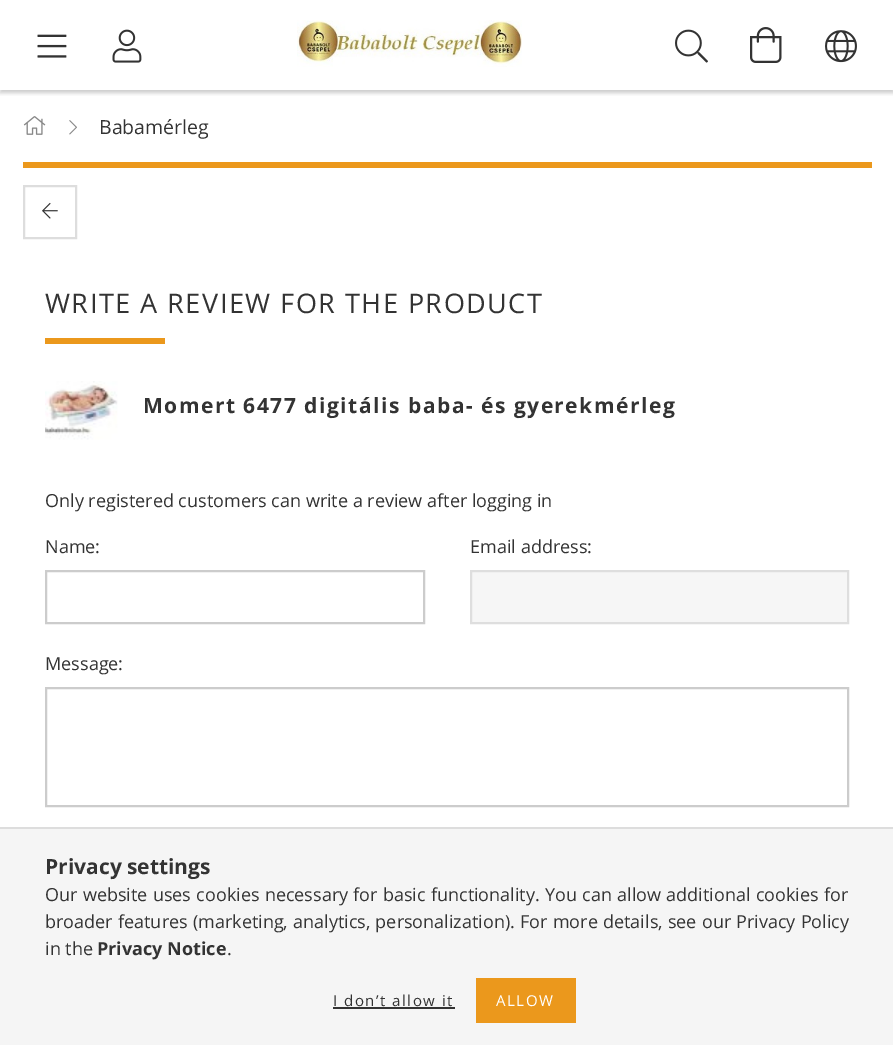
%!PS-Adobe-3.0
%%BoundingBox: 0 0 893 1045
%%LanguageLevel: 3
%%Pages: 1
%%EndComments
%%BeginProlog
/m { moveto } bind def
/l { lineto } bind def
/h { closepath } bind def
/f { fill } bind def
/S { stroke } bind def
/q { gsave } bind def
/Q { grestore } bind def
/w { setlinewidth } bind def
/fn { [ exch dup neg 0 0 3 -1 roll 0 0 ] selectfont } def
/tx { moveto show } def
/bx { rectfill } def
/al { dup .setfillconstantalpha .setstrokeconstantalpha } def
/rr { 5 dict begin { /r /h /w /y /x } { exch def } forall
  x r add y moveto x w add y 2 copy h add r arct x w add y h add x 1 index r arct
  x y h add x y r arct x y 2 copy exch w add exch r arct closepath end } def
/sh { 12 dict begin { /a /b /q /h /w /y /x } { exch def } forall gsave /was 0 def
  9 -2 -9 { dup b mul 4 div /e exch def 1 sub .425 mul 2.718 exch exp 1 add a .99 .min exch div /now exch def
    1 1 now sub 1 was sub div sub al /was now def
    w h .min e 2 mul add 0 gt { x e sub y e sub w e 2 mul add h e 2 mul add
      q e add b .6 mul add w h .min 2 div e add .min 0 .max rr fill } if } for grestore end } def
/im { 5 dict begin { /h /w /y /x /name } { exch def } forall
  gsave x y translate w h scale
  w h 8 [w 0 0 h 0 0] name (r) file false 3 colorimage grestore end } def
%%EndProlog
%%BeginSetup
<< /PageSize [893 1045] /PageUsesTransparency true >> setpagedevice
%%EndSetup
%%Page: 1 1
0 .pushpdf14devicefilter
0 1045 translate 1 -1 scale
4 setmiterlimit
1 setgray
0 0 893 1045 bx
q
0 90 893 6 rectclip
0 setgray
0 3 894 90 0 2 0.2 sh
Q
(image0.raw) 37 34 30 24 im
(image1.raw) 112 29 30 34 im
(image2.raw) 297 20 225 47 im
(image3.raw) 675 29 33 34 im
(image4.raw) 750 27 32 36 im
(image5.raw) 825 30 32 33 im
(image6.raw) 23 116 23 19 im
(image7.raw) 69 120 8 15 im
/OpenSans-Regular 19.5 fn
0.2 setgray
(Babamérleg) 99 134 tx
0.922 0.596 0.11 setrgbcolor
23 162 849 6 bx
0.867 setgray
2 w
24 186 52 52 rectstroke
(image8.raw) 42 202 16 17 im
/OpenSans-Regular 27 fn
0.2 setgray
45 313 m 1.5 0 (WRITE A REVIEW FOR THE PRODUCT) ashow
0.922 0.596 0.11 setrgbcolor
45 338 120 6 bx
(image9.raw) 45 381 73 59 im
/OpenSans-Bold 21 fn
0.2 setgray
143 413 m 1.5 0 (Momert 6477 digitális baba- és gyerekmérleg) ashow
/OpenSans-Regular 18 fn
(Only registered customers can write a review after logging in) 45 507 tx
(Name:) 45 553 tx
0.8 setgray
46 571 378 52 rectstroke
0.2 setgray
(Email address:) 470 553 tx
0.965 setgray
471 571 m 848 571 l 848 623 l 471 623 l h q f Q
0.871 setgray
S
0.2 setgray
(Message:) 45 670 tx
0.8 setgray
46 688 802 118 rectstroke
0.961 setgray
0 829 893 216 bx
0.867 setgray
0 827 893 2 bx
/OpenSans-Bold 21 fn
0.2 setgray
(Privacy settings) 45 874 tx
/OpenSans-Regular 18 fn
45 901 m 0.6 0 32 (Our website uses cookies necessary for basic functionality. You can allow additional cookies for) widthshow
45 928 m 0.5 0 32 (broader features \(marketing, analytics, personalization\). For more details, see our Privacy Policy) widthshow
(in the) 45 955 tx
/OpenSans-Bold 18 fn
(Privacy Notice) 97 955 tx
/OpenSans-Regular 18 fn
(.) 227 955 tx
/OpenSans-Regular 15 fn
333 1006 m 1.5 0 (I don’t allow it) ashow
333 1007 122 2 bx
0.922 0.596 0.11 setrgbcolor
476 978 100 45 bx
1 setgray
496 1006 m 1.5 0 (ALLOW) ashow
.poppdf14devicefilter showpage
%%EOF
